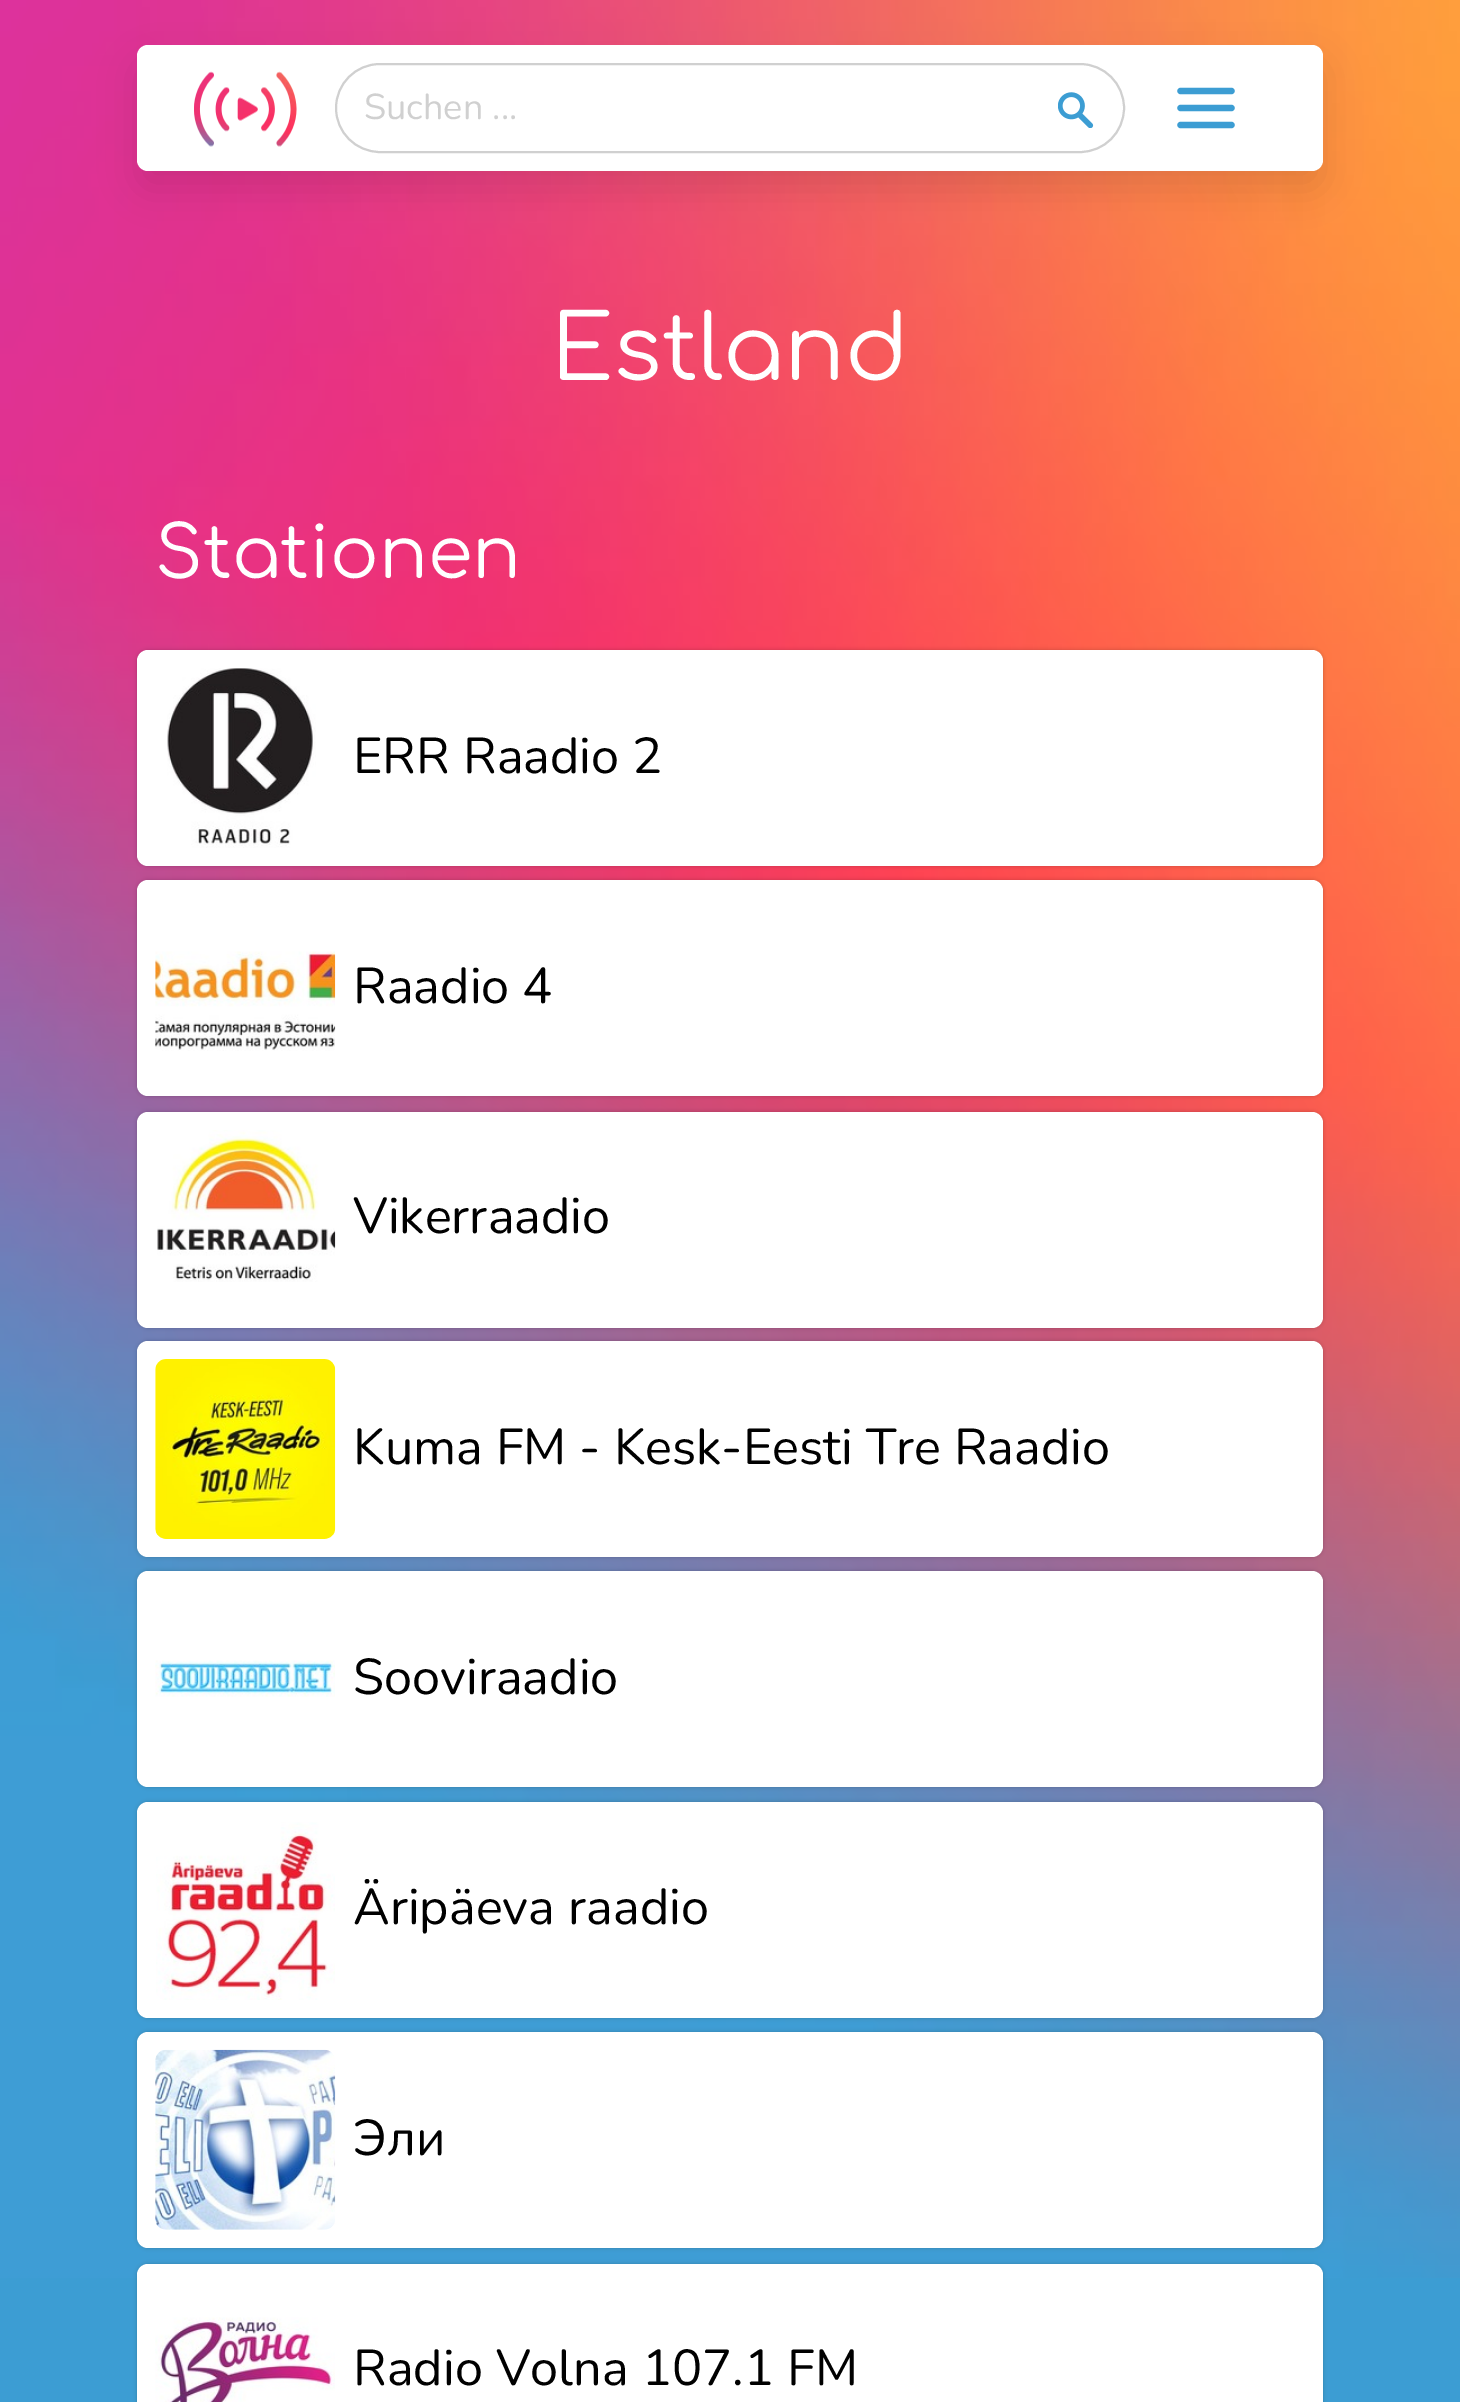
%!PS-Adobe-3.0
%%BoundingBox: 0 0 1460 2402
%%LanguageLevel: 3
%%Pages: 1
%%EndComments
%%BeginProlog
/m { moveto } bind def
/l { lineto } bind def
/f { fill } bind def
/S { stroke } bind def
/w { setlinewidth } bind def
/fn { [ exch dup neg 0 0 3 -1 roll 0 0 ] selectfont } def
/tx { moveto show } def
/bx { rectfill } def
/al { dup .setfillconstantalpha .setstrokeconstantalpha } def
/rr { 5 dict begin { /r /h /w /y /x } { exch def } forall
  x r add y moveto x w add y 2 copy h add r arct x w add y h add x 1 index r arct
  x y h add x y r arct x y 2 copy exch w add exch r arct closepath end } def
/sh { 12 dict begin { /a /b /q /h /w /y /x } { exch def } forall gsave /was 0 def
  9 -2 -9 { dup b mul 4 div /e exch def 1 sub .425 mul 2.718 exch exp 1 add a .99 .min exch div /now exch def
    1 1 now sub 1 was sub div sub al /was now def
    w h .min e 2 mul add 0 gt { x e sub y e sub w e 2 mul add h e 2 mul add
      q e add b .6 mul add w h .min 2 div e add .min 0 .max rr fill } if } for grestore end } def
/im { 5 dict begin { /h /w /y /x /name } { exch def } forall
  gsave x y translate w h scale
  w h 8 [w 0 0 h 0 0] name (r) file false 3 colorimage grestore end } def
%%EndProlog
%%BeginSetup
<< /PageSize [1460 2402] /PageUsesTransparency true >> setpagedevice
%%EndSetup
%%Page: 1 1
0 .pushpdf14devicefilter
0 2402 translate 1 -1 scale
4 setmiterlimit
0.235 0.616 0.827 setrgbcolor
0 0 1460 2402 bx
(image0.raw) 0 0 1460 2278 im
0 setgray
137 63 1186 126 11 18 0.1 sh
1 setgray
137 45 1186 126 11 rr f
(image1.raw) 194 71 103 76 im
0.816 setgray
2 w
336 64 788 88 44 rr S
/Nunito-Regular 36 fn
(Suchen ...) 364 119 tx
(image2.raw) 1058 92 36 36 im
0.235 0.616 0.827 setrgbcolor
6.3 w
1 setlinecap
1180.5 91 m 1231.5 91 l 1180.5 108 m 1231.5 108 l 1180.5 125 m 1231.5 125 l S
/Comfortaa-Regular 90 fn
1 setgray
(Estland) 551 380 tx
/Comfortaa-Regular 72 fn
(Stationen) 155 578 tx
0 setgray
137 650 1186 216 11 2 0.2 sh
1 setgray
137 650 1186 216 11 rr f
(image3.raw) 167 668 149 180 im
/Nunito-Regular 50.4 fn
0 setgray
(ERR Raadio 2) 353 773 tx
137 880 1186 216 11 2 0.2 sh
1 setgray
137 880 1186 216 11 rr f
(image4.raw) 155 951 181 100 im
0 setgray
(Raadio 4) 353 1003 tx
137 1112 1186 216 11 2 0.2 sh
1 setgray
137 1112 1186 216 11 rr f
(image5.raw) 157 1130 179 152 im
0 setgray
(Vikerraadio) 353 1233 tx
137 1341 1186 216 11 2 0.2 sh
1 setgray
137 1341 1186 216 11 rr f
(image6.raw) 155 1359 181 180 im
0 setgray
(Kuma FM - Kesk-Eesti Tre Raadio) 353 1464 tx
137 1571 1186 216 11 2 0.2 sh
1 setgray
137 1571 1186 216 11 rr f
(image7.raw) 155 1660 180 37 im
0 setgray
(Sooviraadio) 353 1694 tx
137 1802 1186 216 11 2 0.2 sh
1 setgray
137 1802 1186 216 11 rr f
(image8.raw) 156 1822 179 178 im
0 setgray
(Äripäeva raadio) 353 1924 tx
137 2032 1186 216 11 2 0.2 sh
1 setgray
137 2032 1186 216 11 rr f
(image9.raw) 155 2049 181 181 im
0 setgray
(Эли) 353 2155 tx
137 2264 1186 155 11 2 0.2 sh
1 setgray
137 2264 1186 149 11 rr f
(image10.raw) 155 2317 180 85 im
0 setgray
(Radio Volna 107.1 FM) 353 2385 tx
.poppdf14devicefilter showpage
%%EOF
